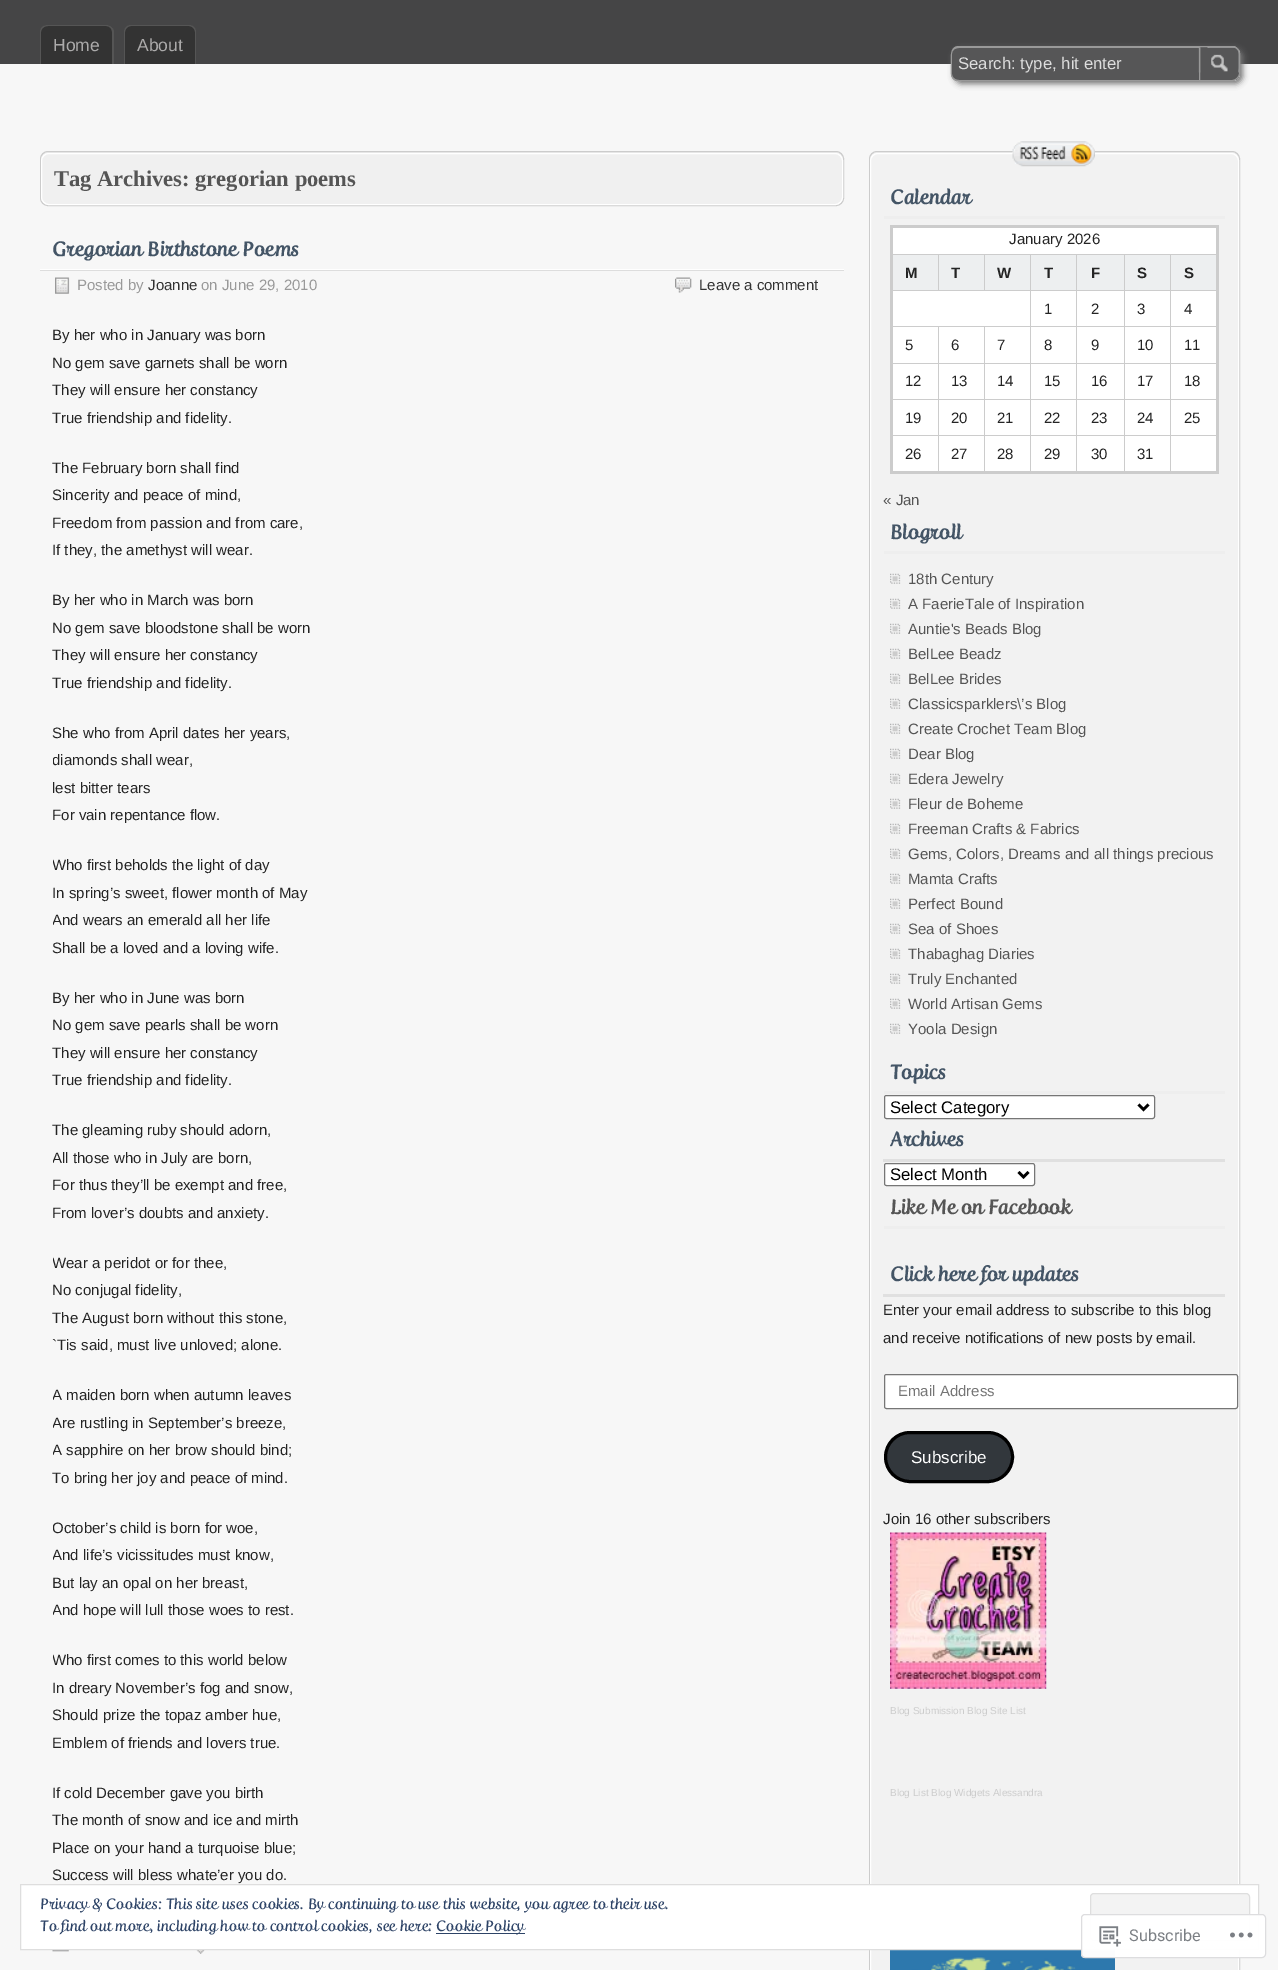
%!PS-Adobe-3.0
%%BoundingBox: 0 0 1278 1970
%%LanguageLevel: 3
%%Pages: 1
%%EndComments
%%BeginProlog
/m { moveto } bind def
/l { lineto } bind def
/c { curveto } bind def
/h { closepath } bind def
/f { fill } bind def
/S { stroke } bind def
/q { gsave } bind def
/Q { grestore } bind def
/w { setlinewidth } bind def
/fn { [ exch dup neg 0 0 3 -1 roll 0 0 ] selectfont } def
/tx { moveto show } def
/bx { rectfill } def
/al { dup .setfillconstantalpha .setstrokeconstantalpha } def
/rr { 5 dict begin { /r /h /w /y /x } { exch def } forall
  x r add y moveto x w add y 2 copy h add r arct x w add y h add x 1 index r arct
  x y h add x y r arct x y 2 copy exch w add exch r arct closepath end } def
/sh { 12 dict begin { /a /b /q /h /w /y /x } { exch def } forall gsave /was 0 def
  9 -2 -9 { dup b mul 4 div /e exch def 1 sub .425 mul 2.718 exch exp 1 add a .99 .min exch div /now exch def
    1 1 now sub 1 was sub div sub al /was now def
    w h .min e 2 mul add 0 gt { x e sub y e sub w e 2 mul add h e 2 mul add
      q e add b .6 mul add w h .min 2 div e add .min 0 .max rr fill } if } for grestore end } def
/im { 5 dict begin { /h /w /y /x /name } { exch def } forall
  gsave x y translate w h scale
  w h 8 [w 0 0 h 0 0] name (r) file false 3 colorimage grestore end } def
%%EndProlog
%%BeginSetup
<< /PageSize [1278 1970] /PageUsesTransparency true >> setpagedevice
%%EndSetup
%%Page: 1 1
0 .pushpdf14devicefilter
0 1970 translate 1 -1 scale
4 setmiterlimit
0.969 setgray
0 0 1278 1970 bx
0.271 0.271 0.275 setrgbcolor
0 0 1278 64 bx
0.2 setgray
48 25 m 106 25 l 110.5 25 114 28.5 114 33 c 114 64 l 40 64 l 40 33 l 40 28.5 43.5 25 48 25 c h f
0.333 setgray
48 25 m 106 25 l 110 25 114 28 114 32 c 114 64 l 40 64 l 40 32 l 40 28 43 25 48 25 c h 48 26 m 106 26 l 110 26 112 29 112 32 c 112 64 l 41 64 l 41 32 l 41 29 44 26 48 26 c h eofill
/LiberationSans-Regular 17.5 fn
0.671 0.667 0.667 setrgbcolor
(Home) 53 51 tx
0.2 setgray
132 25 m 188 25 l 192.5 25 196 28.5 196 33 c 196 64 l 124 64 l 124 33 l 124 28.5 127.5 25 132 25 c h f
0.333 setgray
131 25 m 189 25 l 193 25 196 28 196 32 c 196 64 l 124 64 l 124 32 l 124 28 127 25 131 25 c h 131 26 m 189 26 l 192 26 195 29 195 32 c 195 64 l 125 64 l 125 32 l 125 29 128 26 131 26 c h eofill
0.671 0.667 0.667 setrgbcolor
(About) 137 51 tx
0.467 setgray
954 49 289 35 8 3 1 sh
0.337 0.337 0.341 setrgbcolor
959 46 m 1199 46 l 1199 81 l 959 81 l 954.5 81 951 77.5 951 73 c 951 54 l 951 49.5 954.5 46 959 46 c h f
0.6 setgray
959 46 m 1199 46 l 1199 81 l 957 81 l 949 80 951 70 951 64 c 951 58 949 46 959 46 c h 959 48 m 1199 48 l 1199 80 l 959 80 l 955 80 952 77 952 74 c 952 54 l 952 50 955 48 959 48 c h eofill
/LiberationSans-Regular 16.75 fn
0.867 setgray
(Search: type, hit enter) 958 69 tx
0.337 0.337 0.341 setrgbcolor
1199 46 m 1232 46 l 1236.5 46 1240 49.5 1240 54 c 1240 73 l 1240 77.5 1236.5 81 1232 81 c 1199 81 l h f
(image0.raw) 1198 46 42 35 im
0.6 setgray
1199.5 46.5 m 1232 46.5 l 1236 46.5 1239.5 50 1239.5 54 c 1239.5 73 l 1239.5 77 1236 80.5 1232 80.5 c 1199.5 80.5 l h S
0.941 setgray
40.5 151.5 803 54 7.5 rr q f Q
0.8 setgray
S
1 setgray
41.5 153.5 801 51 7.5 rr S
/LiberationSerif-Bold 22.5 fn
0.333 setgray
(Tag Archives: gregorian poems) 54 186 tx
1 setgray
40 269 804 1 bx
/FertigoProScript-Bold 20 fn
0.267 0.333 0.4 setrgbcolor
(Gregorian Birthstone Poems) 52 256 tx
0.867 setgray
40 270 804 1 bx
(image1.raw) 55 277 15 17 im
/LiberationSans-Regular 15 fn
0.6 setgray
(Posted by) 77 290 tx
0.2 setgray
(Joanne) 148 290 tx
0.6 setgray
(on June 29, 2010) 201 290 tx
(image2.raw) 675 277 17 16 im
0.2 setgray
(Leave a comment) 699 290 tx
0.141 setgray
(By her who in January was born) 52 340 tx
(No gem save garnets shall be worn) 52 368 tx
(They will ensure her constancy) 52 395 tx
(True friendship and fidelity.) 52 423 tx
(The February born shall find) 52 473 tx
(Sincerity and peace of mind,) 52 500 tx
(Freedom from passion and from care,) 52 528 tx
(If they, the amethyst will wear.) 52 555 tx
(By her who in March was born) 52 605 tx
(No gem save bloodstone shall be worn) 52 633 tx
(They will ensure her constancy) 52 660 tx
(True friendship and fidelity.) 52 688 tx
(She who from April dates her years,) 52 738 tx
q
53 321 791 1590 rectclip
(diamonds shall wear,) 52 765 tx
(lest bitter tears) 52 793 tx
Q
(For vain repentance flow.) 52 820 tx
q
53 321 791 1590 rectclip
(Who first beholds the light of day) 52 870 tx
Q
(In spring’s sweet, flower month of May) 52 898 tx
q
53 321 791 1590 rectclip
(And wears an emerald all her life) 52 925 tx
Q
(Shall be a loved and a loving wife.) 52 953 tx
(By her who in June was born) 52 1003 tx
(No gem save pearls shall be worn) 52 1030 tx
(They will ensure her constancy) 52 1058 tx
(True friendship and fidelity.) 52 1085 tx
(The gleaming ruby should adorn,) 52 1135 tx
q
53 321 791 1590 rectclip
(All those who in July are born,) 52 1163 tx
Q
(For thus they’ll be exempt and free,) 52 1190 tx
(From lover’s doubts and anxiety.) 52 1218 tx
q
53 321 791 1590 rectclip
(Wear a peridot or for thee,) 52 1268 tx
Q
(No conjugal fidelity,) 52 1295 tx
(The August born without this stone,) 52 1323 tx
(`Tis said, must live unloved; alone.) 52 1350 tx
q
53 321 791 1590 rectclip
(A maiden born when autumn leaves) 52 1400 tx
(Are rustling in September’s breeze,) 52 1428 tx
(A sapphire on her brow should bind;) 52 1455 tx
Q
(To bring her joy and peace of mind.) 52 1483 tx
q
53 321 791 1590 rectclip
(October’s child is born for woe,) 52 1533 tx
(And life’s vicissitudes must know,) 52 1560 tx
Q
(But lay an opal on her breast,) 52 1588 tx
q
53 321 791 1590 rectclip
(And hope will lull those woes to rest.) 52 1615 tx
(Who first comes to this world below) 52 1665 tx
Q
(In dreary November’s fog and snow,) 52 1693 tx
(Should prize the topaz amber hue,) 52 1720 tx
(Emblem of friends and lovers true.) 52 1748 tx
(If cold December gave you birth) 52 1798 tx
(The month of snow and ice and mirth) 52 1825 tx
(Place on your hand a turquoise blue;) 52 1853 tx
(Success will bless whate’er you do.) 52 1880 tx
(image3.raw) 52 1950 17 2 im
(image4.raw) 196 1950 9 4 im
0.949 setgray
869.5 151.5 370 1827 7.5 rr q f Q
0.8 setgray
S
1 setgray
870.5 153.5 368 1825 7.5 rr S
(image5.raw) 1012 141 83 26 im
0.933 setgray
884 216 341 3 bx
/FertigoProScript-Bold 20 fn
0.267 0.333 0.4 setrgbcolor
(Calendar) 890 204 tx
1 setgray
893 228 323 243 bx
0.8 setgray
890 225 329 3 bx
1170 254 48 1 bx
1170 290 48 1 bx
1170 326 48 1 bx
1170 363 48 1 bx
1170 399 48 1 bx
1170 435 48 1 bx
1216 225 3 249 bx
1170 435 1 39 bx
1124 435 47 1 bx
1124 435 1 39 bx
1076 435 49 1 bx
1076 435 1 39 bx
1030 435 48 1 bx
1030 435 1 39 bx
984 435 47 1 bx
984 435 1 39 bx
938 435 47 1 bx
938 435 1 39 bx
890 471 329 3 bx
1170 399 1 37 bx
1124 399 47 1 bx
1170 363 1 37 bx
1124 363 47 1 bx
1170 326 1 38 bx
1124 326 47 1 bx
1170 290 1 38 bx
1124 290 47 1 bx
1170 254 1 37 bx
1124 254 47 1 bx
1124 399 1 37 bx
1076 399 49 1 bx
1124 363 1 37 bx
1076 363 49 1 bx
1124 326 1 38 bx
1076 326 49 1 bx
1124 290 1 38 bx
1076 290 49 1 bx
1124 254 1 37 bx
1076 254 49 1 bx
0.929 0.937 0.941 setrgbcolor
1031 255 93 35 bx
0.8 setgray
1076 399 1 37 bx
1030 399 48 1 bx
1076 363 1 37 bx
1030 363 48 1 bx
1076 326 1 38 bx
1030 326 48 1 bx
1076 290 1 38 bx
1030 290 48 1 bx
1076 254 1 37 bx
1030 254 48 1 bx
1030 399 1 37 bx
984 399 47 1 bx
1030 363 1 37 bx
984 363 47 1 bx
1030 326 1 38 bx
984 326 47 1 bx
1030 290 1 38 bx
890 290 141 1 bx
1030 254 1 37 bx
984 254 47 1 bx
984 254 1 37 bx
938 254 47 1 bx
938 254 1 37 bx
890 254 49 1 bx
984 399 1 37 bx
938 399 47 1 bx
984 363 1 37 bx
938 363 47 1 bx
984 326 1 38 bx
938 326 47 1 bx
890 435 49 1 bx
938 399 1 37 bx
890 399 49 1 bx
938 363 1 37 bx
890 363 49 1 bx
938 326 1 38 bx
890 326 49 1 bx
890 225 3 249 bx
/LiberationSans-Regular 15 fn
0.141 setgray
(January 2026) 1009 244 tx
0.929 0.937 0.941 setrgbcolor
893 255 45 35 bx
/LiberationSans-Bold 15 fn
0.141 setgray
(M) 905 278 tx
0.929 0.937 0.941 setrgbcolor
939 255 45 35 bx
0.141 setgray
(T) 951 278 tx
0.929 0.937 0.941 setrgbcolor
985 255 45 35 bx
0.141 setgray
(W) 997 278 tx
(T) 1044 278 tx
(F) 1091 278 tx
0.929 0.937 0.941 setrgbcolor
1125 255 45 35 bx
0.141 setgray
(S) 1137 278 tx
0.929 0.937 0.941 setrgbcolor
1171 255 45 35 bx
0.141 setgray
(S) 1184 278 tx
/LiberationSans-Regular 15 fn
(1) 1044 314 tx
(2) 1091 314 tx
(3) 1137 314 tx
(4) 1184 314 tx
(5) 905 350 tx
(6) 951 350 tx
(7) 997 350 tx
(8) 1044 350 tx
(9) 1091 350 tx
(10) 1137 350 tx
(11) 1184 350 tx
(12) 905 386 tx
(13) 951 386 tx
(14) 997 386 tx
(15) 1044 386 tx
(16) 1091 386 tx
(17) 1137 386 tx
(18) 1184 386 tx
(19) 905 423 tx
(20) 951 423 tx
(21) 997 423 tx
(22) 1044 423 tx
(23) 1091 423 tx
(24) 1137 423 tx
(25) 1184 423 tx
(26) 905 459 tx
(27) 951 459 tx
(28) 997 459 tx
(29) 1044 459 tx
(30) 1091 459 tx
(31) 1137 459 tx
0.333 setgray
(« Jan) 883 505 tx
0.933 setgray
884 551 341 3 bx
/FertigoProScript-Bold 20 fn
0.267 0.333 0.4 setrgbcolor
(Blogroll) 890 539 tx
(image6.raw) 890 573 11 11 im
/LiberationSans-Regular 15 fn
0.333 setgray
(18th Century) 908 584 tx
(image6.raw) 890 598 11 11 im
(A FaerieTale of Inspiration) 908 609 tx
(image6.raw) 890 623 11 11 im
(Auntie's Beads Blog) 908 634 tx
(image6.raw) 890 648 11 11 im
(BelLee Beadz) 908 659 tx
(image6.raw) 890 673 11 11 im
(BelLee Brides) 908 684 tx
(image6.raw) 890 698 11 11 im
(Classicsparklers\\’s Blog) 908 709 tx
(image6.raw) 890 723 11 11 im
(Create Crochet Team Blog) 908 734 tx
(image6.raw) 890 748 11 11 im
(Dear Blog) 908 759 tx
(image6.raw) 890 773 11 11 im
(Edera Jewelry) 908 784 tx
(image6.raw) 890 798 11 11 im
(Fleur de Boheme) 908 809 tx
(image6.raw) 890 823 11 11 im
(Freeman Crafts & Fabrics) 908 834 tx
(image6.raw) 890 848 11 11 im
(Gems, Colors, Dreams and all things precious) 908 859 tx
(image6.raw) 890 873 11 11 im
(Mamta Crafts) 908 884 tx
(image6.raw) 890 898 11 11 im
(Perfect Bound) 908 909 tx
(image6.raw) 890 923 11 11 im
(Sea of Shoes) 908 934 tx
(image6.raw) 890 948 11 11 im
(Thabaghag Diaries) 908 959 tx
(image6.raw) 890 973 11 11 im
(Truly Enchanted) 908 984 tx
(image6.raw) 890 998 11 11 im
(World Artisan Gems) 908 1009 tx
(image6.raw) 890 1023 11 11 im
(Yoola Design) 908 1034 tx
0.933 setgray
884 1091 341 3 bx
/FertigoProScript-Bold 20 fn
0.267 0.333 0.4 setrgbcolor
(Topics) 890 1079 tx
1 setgray
884.5 1095.5 270 23 2 rr q f Q
0.463 setgray
S
0 setgray
2.5 w
1138.5 1104.5 m 1143.5 1109.5 l 1148.5 1104.5 l S
/LiberationSans-Regular 16.75 fn
(Select Category) 890 1113 tx
0.878 setgray
883 1159 342 3 bx
/FertigoProScript-Bold 20 fn
0.267 0.333 0.4 setrgbcolor
(Archives) 890 1146 tx
1 setgray
884.5 1163.5 150 22 2 rr q f Q
0.463 setgray
1 w
S
0 setgray
2.5 w
1018.5 1172 m 1023.5 1177 l 1028.5 1172 l S
/LiberationSans-Regular 16.75 fn
(Select Month) 890 1180 tx
0.933 setgray
884 1226 341 3 bx
/FertigoProScript-Bold 20 fn
0.333 setgray
(Like Me on Facebook) 890 1214 tx
0.878 setgray
883 1294 342 3 bx
0.267 0.333 0.4 setrgbcolor
(Click here for updates) 890 1281 tx
/LiberationSans-Regular 15 fn
0.141 setgray
(Enter your email address to subscribe to this blog) 883 1315 tx
(and receive notifications of new posts by email.) 883 1343 tx
1 setgray
884.5 1374.5 353 34 2 rr q f Q
0.463 setgray
1 w
S
0.459 setgray
(Email Address) 898 1396 tx
0.196 0.216 0.235 setrgbcolor
885.5 1432.5 127 49 24.5 rr q f Q
0 setgray
3 w
S
/LiberationSans-Regular 17 fn
1 setgray
(Subscribe) 911 1463 tx
/LiberationSans-Regular 15 fn
0.141 setgray
(Join 16 other subscribers) 883 1524 tx
(image7.raw) 890 1532 157 157 im
/LiberationSans-Regular 10 fn
0.8 setgray
(Blog Submission Blog Site List) 890 1714 tx
(Blog List Blog Widgets Alessandra) 890 1796 tx
(image8.raw) 890 1950 225 20 im
1 setgray
20.5 1884.5 m 1258.5 1884.5 l 1258.5 1949.5 l 20.5 1949.5 l h q f Q
0.871 setgray
1 w
S
/FertigoProScript-Regular 15 fn
0.18 0.267 0.404 setrgbcolor
(Privacy & Cookies: This site uses cookies. By continuing to use this website, you agree to their use.) 40 1909 tx
0.953 setgray
1090.5 1893.5 159 47 3.5 rr q f Q
0.871 setgray
S
0.18 0.267 0.404 setrgbcolor
(To find out more, including how to control cookies, see here:) 40 1931 tx
436 1933 89 1 bx
(Cookie Policy) 436 1931 tx
0.98 al
1 setgray
1081 1914 185 44 4 rr f
0.863 0.863 0.871 setrgbcolor
1081.5 1914.5 184 43 3.5 rr S
1 al
(image9.raw) 1099 1926 22 21 im
/Roboto-Regular 16.25 fn
0.482 0.498 0.518 setrgbcolor
(Subscribe) 1129 1941 tx
(image10.raw) 1230 1932 23 6 im
.poppdf14devicefilter showpage
%%EOF
